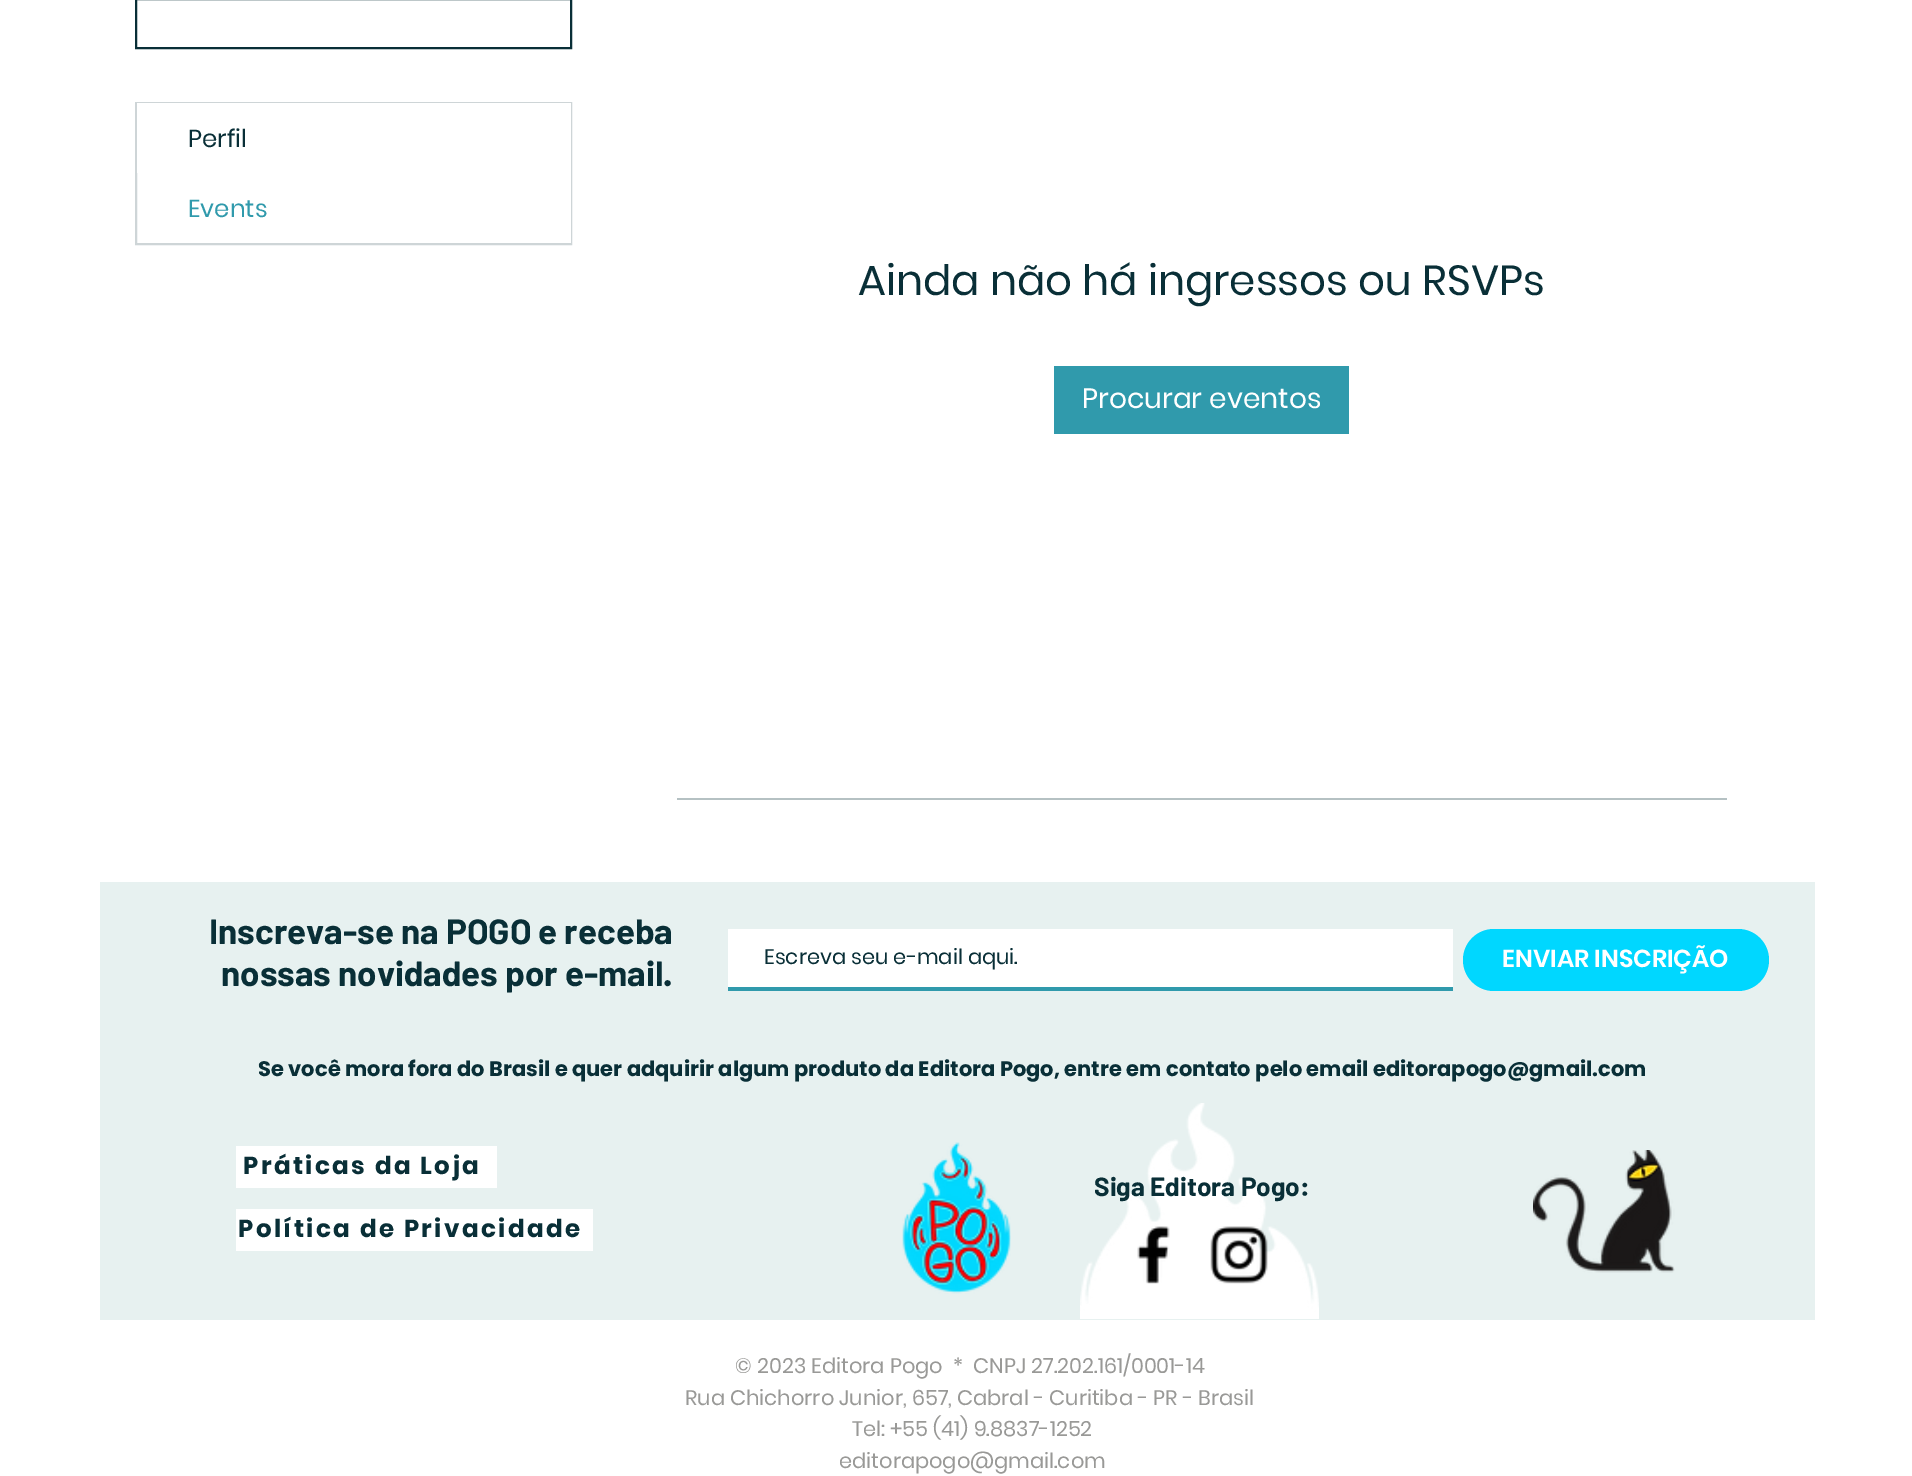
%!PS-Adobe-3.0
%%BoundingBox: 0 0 1912 1476
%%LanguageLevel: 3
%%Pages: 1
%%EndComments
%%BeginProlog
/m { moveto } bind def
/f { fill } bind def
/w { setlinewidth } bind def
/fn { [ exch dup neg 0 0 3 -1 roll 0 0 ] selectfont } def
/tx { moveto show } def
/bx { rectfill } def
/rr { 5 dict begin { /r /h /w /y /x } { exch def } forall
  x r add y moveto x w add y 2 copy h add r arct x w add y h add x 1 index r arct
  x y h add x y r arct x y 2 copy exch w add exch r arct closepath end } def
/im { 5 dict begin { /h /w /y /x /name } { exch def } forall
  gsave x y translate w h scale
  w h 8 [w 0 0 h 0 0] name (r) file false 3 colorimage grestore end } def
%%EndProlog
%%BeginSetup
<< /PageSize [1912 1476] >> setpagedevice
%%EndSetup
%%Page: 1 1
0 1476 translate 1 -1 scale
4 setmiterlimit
1 setgray
0 0 1912 1476 bx
0.035 0.184 0.216 setrgbcolor
2 w
136 -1 435 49 rectstroke
0.808 0.835 0.843 setrgbcolor
136 103 435 141 rectstroke
1 setgray
137 103 434 70 bx
/Poppins-Regular 24.5 fn
0.035 0.184 0.216 setrgbcolor
(Perfil) 188 147 tx
1 setgray
570 173 1 70 bx
0.188 0.604 0.675 setrgbcolor
(Events) 188 217 tx
/Poppins-Regular 42 fn
0.035 0.184 0.216 setrgbcolor
(Ainda não há ingressos ou RSVPs) 858 295 tx
0.188 0.604 0.675 setrgbcolor
1054 366 295 68 bx
/Poppins-Regular 28 fn
1 setgray
(Procurar eventos) 1082 408 tx
0.71 0.757 0.765 setrgbcolor
677 798 1050 2 bx
0.906 0.945 0.941 setrgbcolor
100 882 1715 438 bx
/Barlow-Bold 35 fn
0.035 0.184 0.216 setrgbcolor
(Inscreva-se na POGO e receba) 209 944 tx
(nossas novidades por e-mail.) 221 986 tx
1 setgray
728 929 725 58 bx
0.188 0.604 0.675 setrgbcolor
728 987 725 4 bx
/Poppins-Regular 21 fn
0.035 0.184 0.216 setrgbcolor
(Escreva seu e-mail aqui.) 764 964 tx
0 0.843 1 setrgbcolor
1463 929 306 62 31 rr f
/Poppins-SemiBold 24.5 fn
1 setgray
(ENVIAR INSCRIÇÃO) 1502 967 tx
/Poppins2-Bold 21 fn
0.035 0.184 0.216 setrgbcolor
(Se você mora fora do Brasil e quer adquirir algum produto da Editora Pogo, entre em contato pelo email editorapogo@gmail.com) 258 1076 tx
1 setgray
236 1146 261 42 bx
/Poppins-Bold 24.5 fn
0.035 0.184 0.216 setrgbcolor
243 1174 m 2.45 0 (Práticas da Loja) ashow
(image0.raw) 902 1142 109 152 im
(image1.raw) 1080 1103 239 216 im
(image2.raw) 1533 1150 142 123 im
/Barlow-Bold 26.25 fn
(Siga Editora Pogo:) 1094 1196 tx
1 setgray
236 1209 357 42 bx
/Poppins-Bold 24.5 fn
0.035 0.184 0.216 setrgbcolor
238 1237 m 2.45 0 (Política de Privacidade) ashow
(image3.raw) 1137 1226 33 58 im
(image4.raw) 1210 1226 58 58 im
/Poppins-Regular 21 fn
0.6 0.6 0.592 setrgbcolor
(© 2023 Editora Pogo  *  CNPJ 27.202.161/0001-14) 735 1373 tx
(Rua Chichorro Junior, 657, Cabral - Curitiba - PR - Brasil) 685 1405 tx
(Tel: +55 \(41\) 9.8837-1252) 852 1436 tx
(editorapogo@gmail.com) 839 1468 tx
showpage
%%EOF
